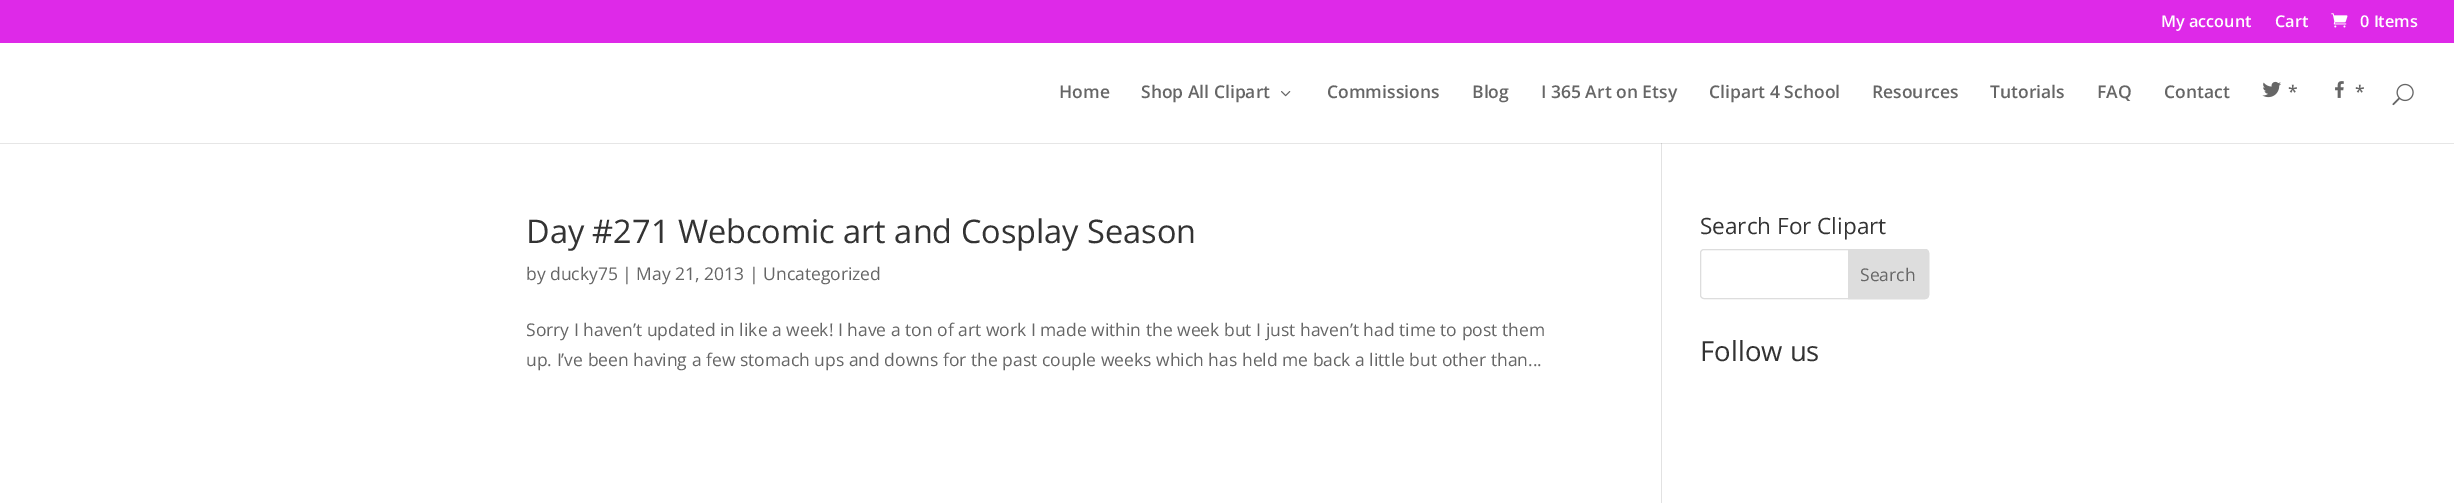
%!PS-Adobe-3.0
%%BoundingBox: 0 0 2454 503
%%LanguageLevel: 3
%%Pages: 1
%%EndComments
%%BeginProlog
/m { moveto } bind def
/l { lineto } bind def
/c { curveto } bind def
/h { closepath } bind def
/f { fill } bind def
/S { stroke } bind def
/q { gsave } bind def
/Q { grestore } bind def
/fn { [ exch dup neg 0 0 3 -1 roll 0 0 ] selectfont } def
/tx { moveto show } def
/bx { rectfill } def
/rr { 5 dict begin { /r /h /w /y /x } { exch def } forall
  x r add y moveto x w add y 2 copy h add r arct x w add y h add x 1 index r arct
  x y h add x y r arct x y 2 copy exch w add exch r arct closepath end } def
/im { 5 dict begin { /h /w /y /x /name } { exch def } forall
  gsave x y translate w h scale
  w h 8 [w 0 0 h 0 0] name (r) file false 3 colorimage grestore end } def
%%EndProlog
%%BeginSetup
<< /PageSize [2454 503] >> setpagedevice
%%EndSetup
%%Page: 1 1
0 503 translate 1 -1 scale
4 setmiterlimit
1 setgray
0 0 2454 503 bx
0.902 setgray
0 143 2454 1 bx
0.871 0.161 0.91 setrgbcolor
0 0 2454 43 bx
/OpenSans-SemiBold 16.25 fn
1 setgray
(My account) 2161 27 tx
(Cart) 2275 27 tx
(image0.raw) 2331 13 17 15 im
(0 Items) 2360 27 tx
0.886 setgray
1661 141 1 362 bx
0.796 setgray
1661 142 1 2 bx
1 setgray
1661 141 1 2 bx
/OpenSans-SemiBold 17.5 fn
0.4 setgray
(Home) 1059 98 tx
(Shop All Clipart) 1141 98 tx
(image1.raw) 1281 91 10 6 im
(Commissions) 1327 98 tx
(Blog) 1472 98 tx
(I 365 Art on Etsy) 1541 98 tx
(Clipart 4 School) 1709 98 tx
(Resources) 1872 98 tx
(Tutorials) 1990 98 tx
(FAQ) 2097 98 tx
(Contact) 2164 98 tx
(image2.raw) 2262 81 19 17 im
(*) 2288 98 tx
(image3.raw) 2335 81 9 17 im
(*) 2355 98 tx
(image4.raw) 2392 83 22 23 im
/OpenSans-Regular 32.5 fn
0.2 setgray
(Day #271 Webcomic art and Cosplay Season) 526 243 tx
/OpenSans-Regular 17.5 fn
0.4 setgray
(by ducky75 | May 21, 2013 | Uncategorized) 526 280 tx
(Sorry I haven’t updated in like a week! I have a ton of art work I made within the week but I just haven’t had time to post them) 526 336 tx
(up. I’ve been having a few stomach ups and downs for the past couple weeks which has held me back a little but other than...) 526 366 tx
/OpenSans-Regular 22.5 fn
0.2 setgray
(Search For Clipart) 1700 234 tx
0.867 setgray
1700.5 249.5 228 49 3.5 rr S
1848.5 249.5 m 1925 249.5 l 1927 249.5 1928.5 251 1928.5 253 c 1928.5 295 l 1928.5 297 1927 298.5 1925 298.5 c 1848.5 298.5 l h q f Q
S
/OpenSans-Regular 17.5 fn
0.4 setgray
(Search) 1860 281 tx
/OpenSans-Regular 27.5 fn
0.2 setgray
(Follow us) 1700 361 tx
showpage
%%EOF
